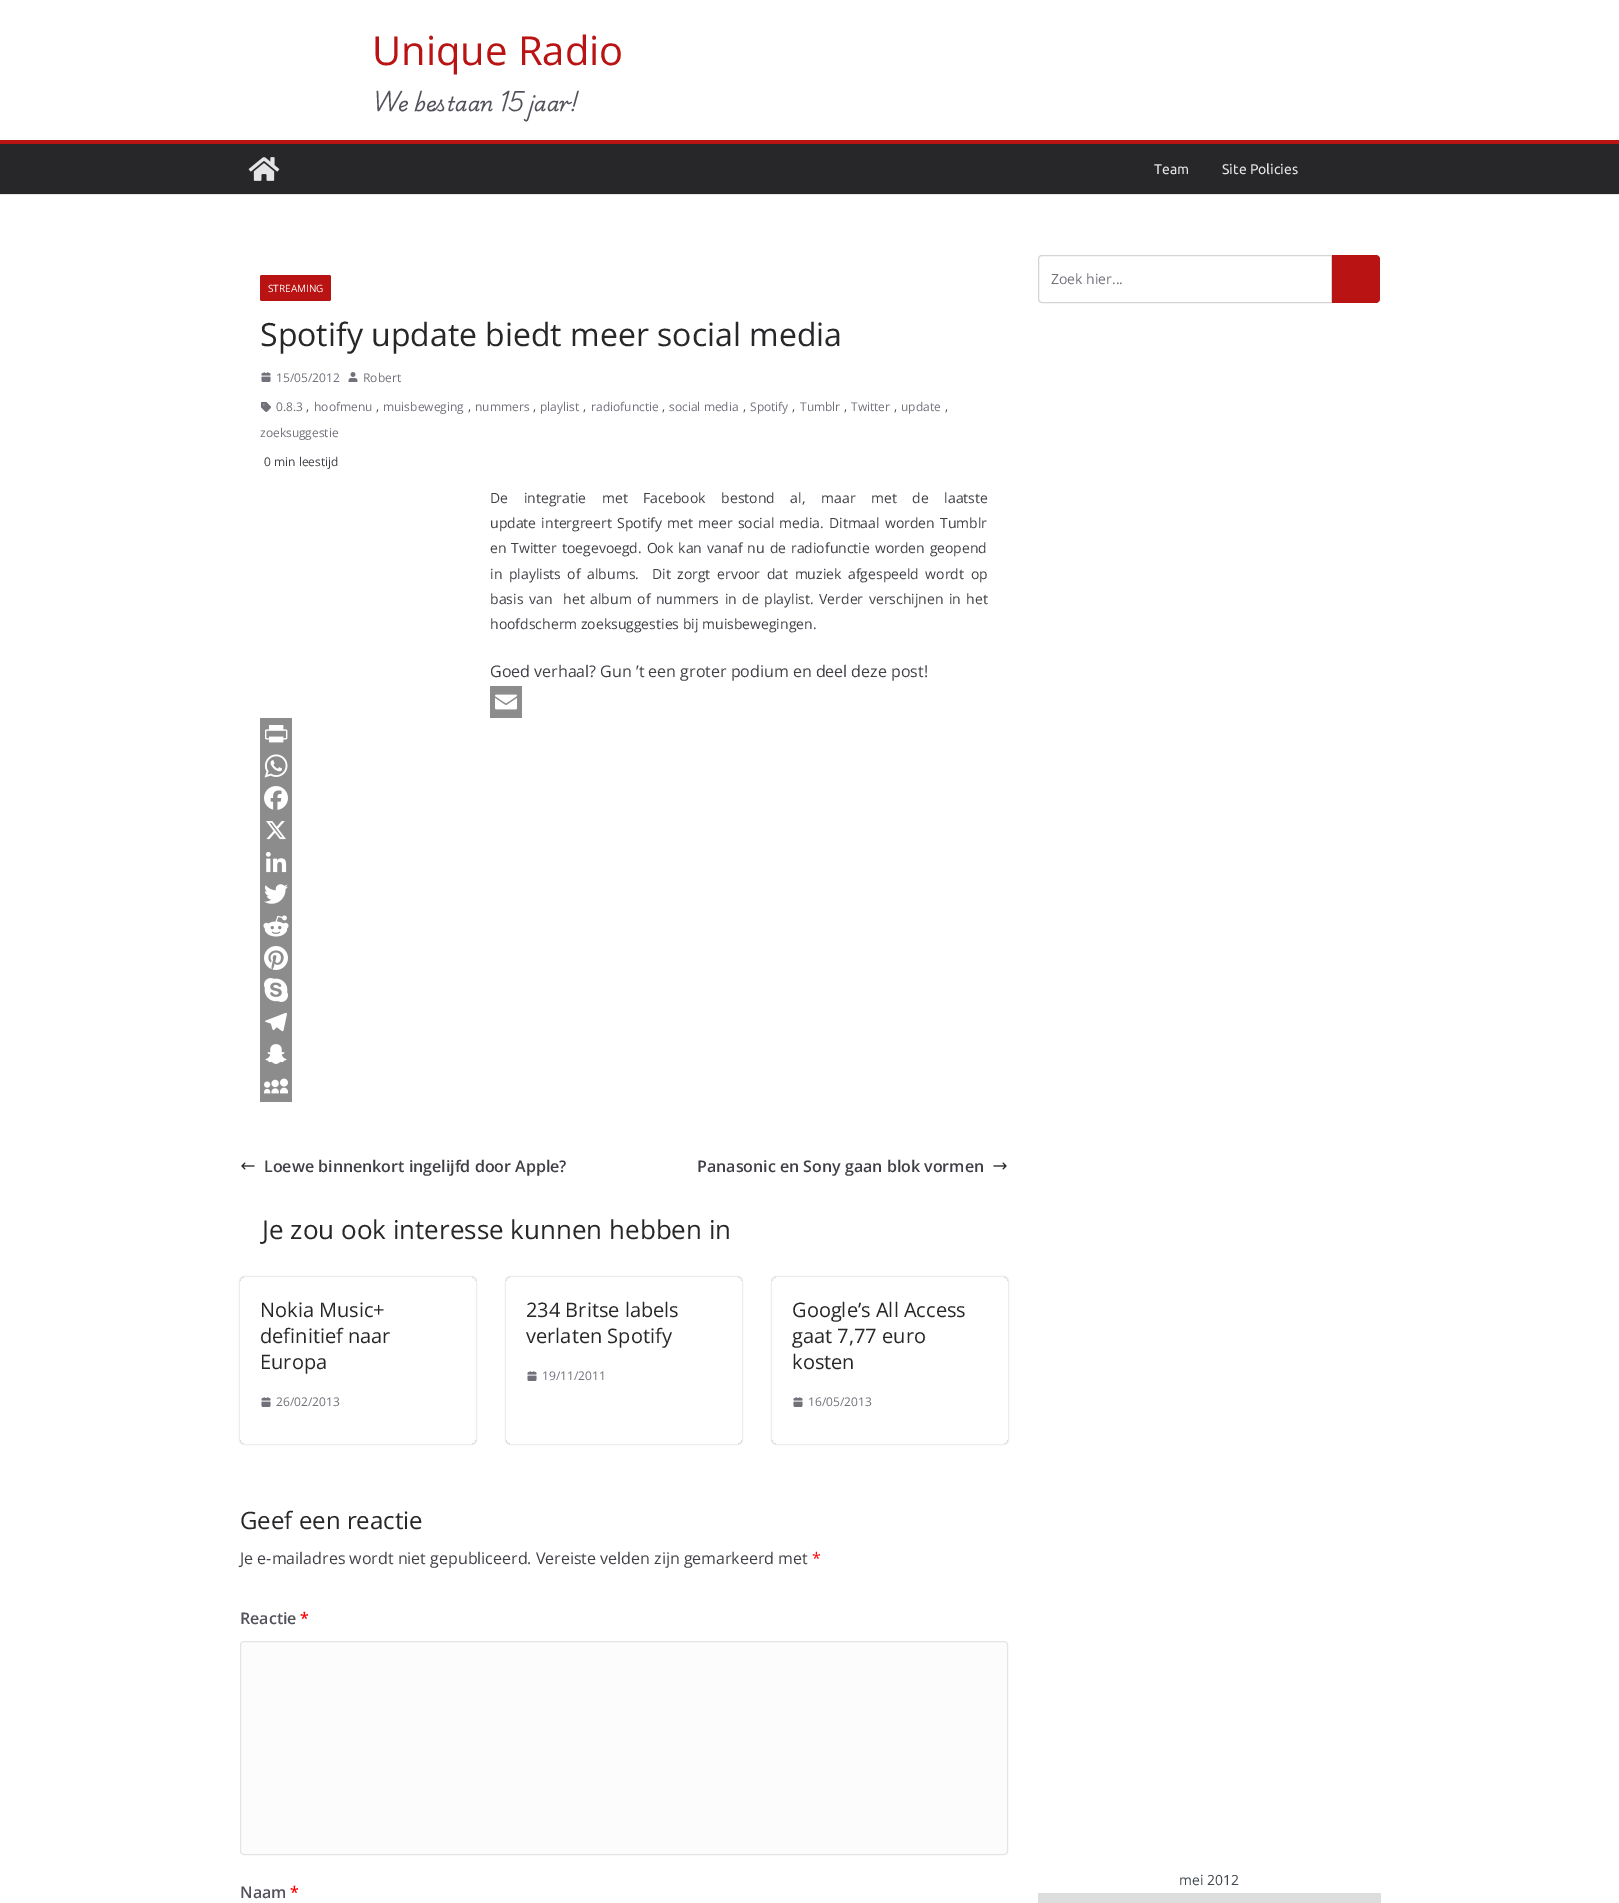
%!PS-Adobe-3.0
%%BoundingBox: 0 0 1619 1903
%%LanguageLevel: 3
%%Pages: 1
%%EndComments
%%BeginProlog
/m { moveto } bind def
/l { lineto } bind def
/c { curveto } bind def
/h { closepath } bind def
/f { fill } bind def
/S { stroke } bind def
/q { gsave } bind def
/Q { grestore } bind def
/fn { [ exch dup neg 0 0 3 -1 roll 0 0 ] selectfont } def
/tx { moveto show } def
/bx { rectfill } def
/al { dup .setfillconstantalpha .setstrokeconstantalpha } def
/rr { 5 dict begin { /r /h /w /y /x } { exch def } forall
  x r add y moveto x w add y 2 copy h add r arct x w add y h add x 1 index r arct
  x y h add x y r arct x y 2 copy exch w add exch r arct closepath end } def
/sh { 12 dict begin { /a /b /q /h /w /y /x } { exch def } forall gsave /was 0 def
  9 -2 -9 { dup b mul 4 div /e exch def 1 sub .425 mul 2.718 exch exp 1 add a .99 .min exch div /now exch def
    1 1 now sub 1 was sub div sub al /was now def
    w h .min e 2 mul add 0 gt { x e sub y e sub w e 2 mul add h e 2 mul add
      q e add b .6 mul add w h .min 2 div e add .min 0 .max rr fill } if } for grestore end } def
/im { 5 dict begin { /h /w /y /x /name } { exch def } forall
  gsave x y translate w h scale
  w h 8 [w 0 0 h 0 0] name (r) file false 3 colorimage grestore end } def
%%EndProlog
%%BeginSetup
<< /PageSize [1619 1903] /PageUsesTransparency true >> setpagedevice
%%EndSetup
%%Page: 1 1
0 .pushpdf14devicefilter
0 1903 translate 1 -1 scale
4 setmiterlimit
0.894 0.894 0.906 setrgbcolor
0 0 1619 1903 bx
1 setgray
0 0 1619 140 bx
/OpenSans-Regular 40 fn
0.725 0.075 0.075 setrgbcolor
(Unique Radio) 372 65 tx
/PlaywriteAUQLD-Regular 20 fn
0.322 0.322 0.357 setrgbcolor
372 111 m -1 0 32 (We bestaan 15 jaar!) widthshow
0.153 0.153 0.165 setrgbcolor
0 144 1619 50 bx
0.725 0.075 0.075 setrgbcolor
0 140 1619 4 bx
(image0.raw) 248 157 32 24 im
/Ubuntu-Regular 14 fn
0.894 0.894 0.906 setrgbcolor
(Team) 1154 174 tx
(Site Policies) 1222 174 tx
1 setgray
0 195 1619 1708 bx
0.725 0.075 0.075 setrgbcolor
260 275 71 26 2 rr f
/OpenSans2-Regular 10 fn
1 setgray
(STREAMING) 268 292 tx
/OpenSans-Regular 32 fn
0.153 0.153 0.165 setrgbcolor
(Spotify update biedt meer social media) 260 346 tx
(image1.raw) 261 372 10 10 im
/OpenSans2-Regular 12 fn
0.443 0.443 0.478 setrgbcolor
(15/05/2012) 276 382 tx
(image2.raw) 348 372 10 10 im
(Robert) 363 382 tx
(image3.raw) 261 402 10 10 im
(0.8.3) 276 411 tx
0.247 0.247 0.275 setrgbcolor
(,) 306 411 tx
0.443 0.443 0.478 setrgbcolor
(hoofmenu) 314 411 tx
0.247 0.247 0.275 setrgbcolor
(,) 376 411 tx
0.443 0.443 0.478 setrgbcolor
(muisbeweging) 383 411 tx
0.247 0.247 0.275 setrgbcolor
(,) 468 411 tx
0.443 0.443 0.478 setrgbcolor
(nummers) 475 411 tx
0.247 0.247 0.275 setrgbcolor
(,) 533 411 tx
0.443 0.443 0.478 setrgbcolor
(playlist) 540 411 tx
0.247 0.247 0.275 setrgbcolor
(,) 583 411 tx
0.443 0.443 0.478 setrgbcolor
(radiofunctie) 591 411 tx
0.247 0.247 0.275 setrgbcolor
(,) 662 411 tx
0.443 0.443 0.478 setrgbcolor
(social media) 669 411 tx
0.247 0.247 0.275 setrgbcolor
(,) 743 411 tx
0.443 0.443 0.478 setrgbcolor
(Spotify) 750 411 tx
0.247 0.247 0.275 setrgbcolor
(,) 792 411 tx
0.443 0.443 0.478 setrgbcolor
(Tumblr) 800 411 tx
0.247 0.247 0.275 setrgbcolor
(,) 844 411 tx
0.443 0.443 0.478 setrgbcolor
(Twitter) 851 411 tx
0.247 0.247 0.275 setrgbcolor
(,) 894 411 tx
0.443 0.443 0.478 setrgbcolor
(update) 901 411 tx
0.247 0.247 0.275 setrgbcolor
(,) 945 411 tx
0.443 0.443 0.478 setrgbcolor
(zoeksuggestie) 260 437 tx
0.247 0.247 0.275 setrgbcolor
(0 min leestijd) 264 466 tx
/OpenSans2-Regular 14 fn
490 503 m 12 0 32 (De integratie met Facebook bestond al, maar met de laatste) widthshow
490 528 m 1.5 0 32 (update intergreert Spotify met meer social media. Ditmaal worden Tumblr) widthshow
490 553 m 1.25 0 32 (en Twitter toegevoegd. Ook kan vanaf nu de radiofunctie worden geopend) widthshow
490 579 m 2.9 0 32 (in playlists of albums.  Dit zorgt ervoor dat muziek afgespeeld wordt op) widthshow
490 604 m 1.9 0 32 (basis van  het album of nummers in de playlist. Verder verschijnen in het) widthshow
(hoofdscherm zoeksuggesties bij muisbewegingen.) 490 629 tx
/OpenSans2-Regular 16 fn
(Goed verhaal? Gun ’t een groter podium en deel deze post!) 490 677 tx
0.549 setgray
490 686 32 32 bx
(image4.raw) 495 694 22 16 im
260 718 32 384 bx
(image5.raw) 265 725 23 18 im
(image6.raw) 264 754 24 24 im
(image7.raw) 264 786 24 24 im
(image8.raw) 266 821 20 19 im
(image9.raw) 265 851 22 22 im
(image10.raw) 264 884 24 20 im
(image11.raw) 263 915 26 22 im
(image12.raw) 264 946 24 24 im
(image13.raw) 264 978 24 24 im
(image14.raw) 265 1012 22 20 im
(image15.raw) 265 1044 22 20 im
(image16.raw) 264 1078 24 16 im
(image17.raw) 241 1162 14 8 im
/OpenSans-SemiBold 16 fn
0.247 0.247 0.275 setrgbcolor
(Loewe binnenkort ingelijfd door Apple?) 264 1172 tx
(Panasonic en Sony gaan blok vormen) 697 1172 tx
(image18.raw) 993 1162 14 8 im
/OpenSans-Regular 26 fn
0.153 0.153 0.165 setrgbcolor
(Je zou ook interesse kunnen hebben in) 262 1239 tx
q
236 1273 m 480 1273 l 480 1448 l 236 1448 l h 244 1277 m 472 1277 l 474 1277 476 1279 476 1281 c 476 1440 l 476 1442 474 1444 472 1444 c 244 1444 l 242 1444 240 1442 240 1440 c 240 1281 l 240 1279 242 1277 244 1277 c h eoclip newpath
0 setgray
240 1277 236 167 4 1 0.24 sh
Q
/OpenSans-Regular 20 fn
(Nokia Music+) 260 1317 tx
(definitief naar) 260 1343 tx
(Europa) 260 1369 tx
(image1.raw) 261 1397 10 10 im
/OpenSans2-Regular 12 fn
0.443 0.443 0.478 setrgbcolor
(26/02/2013) 276 1406 tx
q
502 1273 m 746 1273 l 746 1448 l 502 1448 l h 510 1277 m 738 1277 l 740 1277 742 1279 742 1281 c 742 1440 l 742 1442 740 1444 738 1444 c 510 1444 l 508 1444 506 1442 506 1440 c 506 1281 l 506 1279 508 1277 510 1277 c h eoclip newpath
0 setgray
506 1277 236 167 4 1 0.24 sh
Q
/OpenSans-Regular 20 fn
0.153 0.153 0.165 setrgbcolor
(234 Britse labels) 526 1317 tx
(verlaten Spotify) 526 1343 tx
(image1.raw) 527 1371 10 10 im
/OpenSans2-Regular 12 fn
0.443 0.443 0.478 setrgbcolor
(19/11/2011) 542 1380 tx
q
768 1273 m 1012 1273 l 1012 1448 l 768 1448 l h 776 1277 m 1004 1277 l 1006 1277 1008 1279 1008 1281 c 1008 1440 l 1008 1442 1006 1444 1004 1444 c 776 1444 l 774 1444 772 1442 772 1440 c 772 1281 l 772 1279 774 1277 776 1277 c h eoclip newpath
0 setgray
772 1277 236 167 4 1 0.24 sh
Q
/OpenSans-Regular 20 fn
0.153 0.153 0.165 setrgbcolor
(Google’s All Access) 792 1317 tx
(gaat 7,77 euro) 792 1343 tx
(kosten) 792 1369 tx
(image1.raw) 793 1397 10 10 im
/OpenSans2-Regular 12 fn
0.443 0.443 0.478 setrgbcolor
(16/05/2013) 808 1406 tx
/OpenSans-Regular 24 fn
0.153 0.153 0.165 setrgbcolor
(Geef een reactie) 240 1529 tx
/OpenSans2-Regular 16 fn
0.247 0.247 0.275 setrgbcolor
(Je e-mailadres wordt niet gepubliceerd. Vereiste velden zijn gemarkeerd met) 240 1564 tx
1 0 0 setrgbcolor
(*) 812 1564 tx
/OpenSans-SemiBold 16 fn
0.322 0.322 0.357 setrgbcolor
(Reactie) 240 1624 tx
1 0 0 setrgbcolor
(*) 300 1624 tx
0.988 setgray
240.5 1641.5 767 213 3.5 rr q f Q
0.894 0.894 0.906 setrgbcolor
S
0.322 0.322 0.357 setrgbcolor
(Naam) 240 1898 tx
1 0 0 setrgbcolor
(*) 290 1898 tx
0.831 0.831 0.847 setrgbcolor
1042 255.5 m 1331.5 255.5 l 1331.5 302.5 l 1042 302.5 l 1040 302.5 1038.5 301 1038.5 299 c 1038.5 259 l 1038.5 257 1040 255.5 1042 255.5 c h S
/OpenSans2-Regular 14 fn
0.443 0.443 0.478 setrgbcolor
(Zoek hier...) 1051 284 tx
0.725 0.075 0.075 setrgbcolor
1332 255 m 1376 255 l 1378 255 1380 257 1380 259 c 1380 299 l 1380 301 1378 303 1376 303 c 1332 303 l h f
0.251 0.275 0.302 setrgbcolor
(mei 2012) 1179 1885 tx
0.867 setgray
1038 1893 293 10 bx
1331 1894 49 9 bx
1331 1893 50 1 bx
1380 1893 1 10 bx
.poppdf14devicefilter showpage
%%EOF
